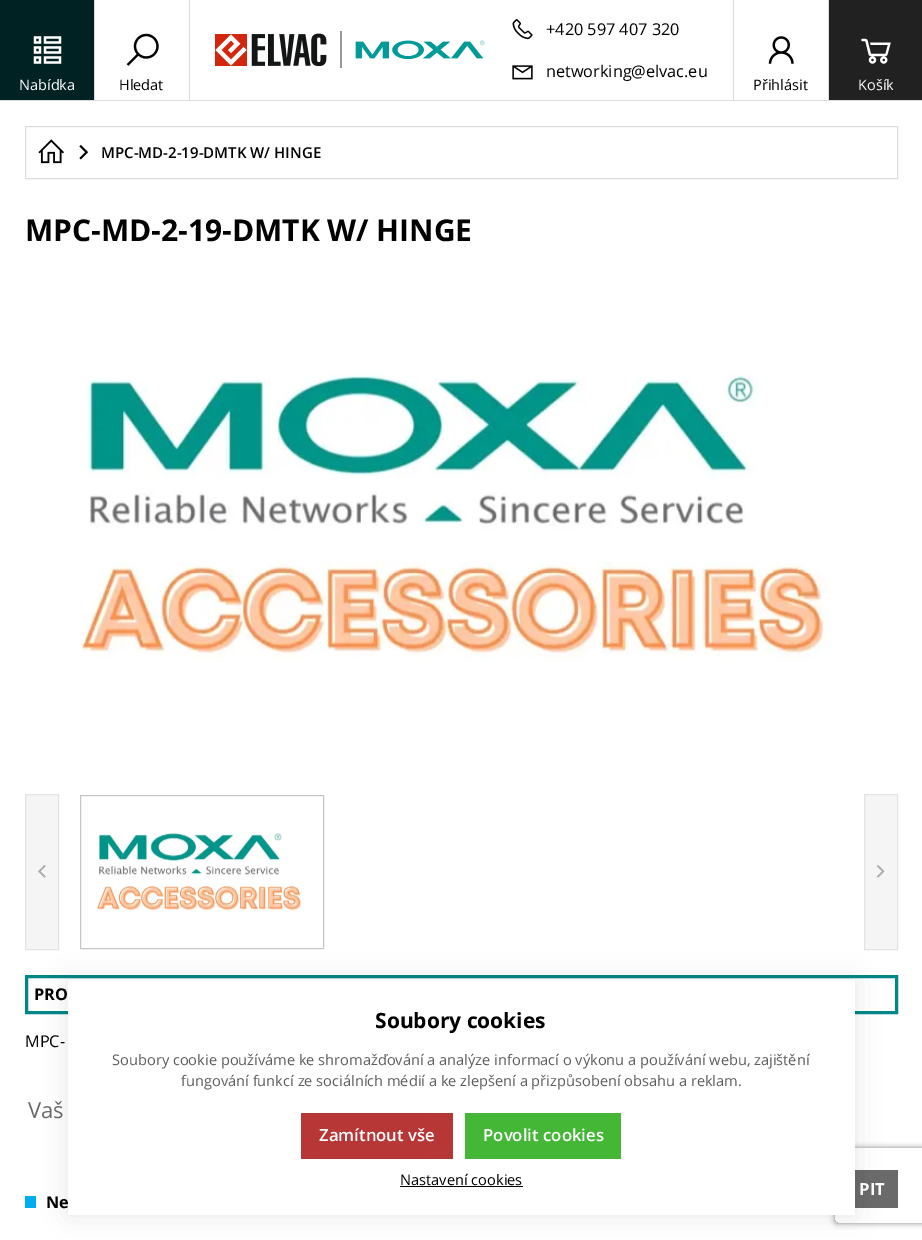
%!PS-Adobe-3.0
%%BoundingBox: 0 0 922 1240
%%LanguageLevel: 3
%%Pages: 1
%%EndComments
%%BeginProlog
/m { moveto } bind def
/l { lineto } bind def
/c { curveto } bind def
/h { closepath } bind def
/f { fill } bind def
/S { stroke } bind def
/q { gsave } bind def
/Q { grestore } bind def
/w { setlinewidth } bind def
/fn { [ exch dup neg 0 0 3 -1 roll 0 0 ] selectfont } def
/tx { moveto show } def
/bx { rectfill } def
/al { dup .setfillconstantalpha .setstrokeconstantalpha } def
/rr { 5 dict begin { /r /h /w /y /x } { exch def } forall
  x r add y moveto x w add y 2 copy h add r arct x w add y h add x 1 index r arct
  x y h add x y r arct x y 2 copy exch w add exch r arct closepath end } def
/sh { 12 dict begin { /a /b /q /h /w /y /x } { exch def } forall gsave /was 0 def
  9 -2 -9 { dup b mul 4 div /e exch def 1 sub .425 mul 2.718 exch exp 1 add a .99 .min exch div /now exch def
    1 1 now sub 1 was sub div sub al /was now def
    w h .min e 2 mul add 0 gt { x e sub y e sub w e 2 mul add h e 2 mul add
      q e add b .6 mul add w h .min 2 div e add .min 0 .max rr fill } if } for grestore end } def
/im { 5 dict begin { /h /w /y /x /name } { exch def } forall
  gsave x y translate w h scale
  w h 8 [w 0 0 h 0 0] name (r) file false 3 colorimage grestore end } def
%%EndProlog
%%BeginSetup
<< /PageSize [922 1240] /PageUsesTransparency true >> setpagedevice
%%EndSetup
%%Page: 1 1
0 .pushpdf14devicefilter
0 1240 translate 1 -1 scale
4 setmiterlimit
1 setgray
0 0 922 1240 bx
0.867 setgray
0 100 922 1 bx
(image0.raw) 215 31 270 37 im
(image1.raw) 512 19 21 21 im
/OpenSans-Regular 16.25 fn
0 setgray
(+420 597 407 320) 546 35 tx
(image2.raw) 512 65 21 15 im
(networking@elvac.eu) 546 77 tx
0 0.133 0.137 setrgbcolor
0 0 94 100 bx
0.867 setgray
94 0 1 100 bx
(image3.raw) 33 36 29 28 im
/OpenSans-Regular 14.5 fn
1 setgray
(Nabídka) 19 90 tx
0.867 setgray
189 0 1 100 bx
(image4.raw) 126 33 33 33 im
0 setgray
(Hledat) 119 90 tx
0.867 setgray
733 0 1 100 bx
(image5.raw) 768 36 26 28 im
0 setgray
(Přihlásit) 753 90 tx
0.129 setgray
829 0 93 100 bx
0.867 setgray
828 0 1 100 bx
(image6.raw) 861 38 30 26 im
1 setgray
(Košík) 858 90 tx
0.867 setgray
25.5 126.5 872 52 rectstroke
(image7.raw) 38 139 26 25 im
(image8.raw) 79 144 10 16 im
/OpenSans-SemiBold 15 fn
0 setgray
(MPC-MD-2-19-DMTK W/ HINGE) 101 158 tx
/OpenSans-Bold 30 fn
(MPC-MD-2-19-DMTK W/ HINGE) 25 241 tx
(image9.raw) 81 371 747 289 im
0.961 setgray
25.5 794.5 m 58.5 794.5 l 58.5 949.5 l 25.5 949.5 l h q f Q
0.89 setgray
S
(image10.raw) 38 865 8 13 im
0.776 setgray
80.5 795.5 243 153 rectstroke
(image11.raw) 97 832 205 80 im
0.961 setgray
864.5 794.5 m 897.5 794.5 l 897.5 949.5 l 864.5 949.5 l h q f Q
0.89 setgray
S
(image12.raw) 876 865 9 13 im
0.004 0.529 0.533 setrgbcolor
3 w
26.5 976.5 870 36 rectstroke
/OpenSans-Bold 16.25 fn
0 setgray
(PRO) 34 1000 tx
/OpenSans-Regular 16.25 fn
(MPC-) 25 1047 tx
/OpenSans-Regular 22 fn
0.42 setgray
(Vaš) 28 1118 tx
0.416 setgray
855 1170 43 38 bx
/OpenSans-Bold 16.75 fn
1 setgray
(PIT) 859 1195 tx
0 0.678 0.937 setrgbcolor
25 1196 11 12 bx
/OpenSans-Bold 16.25 fn
0 setgray
(Ne) 46 1208 tx
68 980 787 235 0 12.5 0.1 sh
q
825 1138 m 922 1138 l 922 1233 l 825 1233 l h 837.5 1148 m 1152.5 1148 l 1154 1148 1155 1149 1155 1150.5 c 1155 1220.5 l 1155 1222 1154 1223 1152.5 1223 c 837.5 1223 l 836 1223 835 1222 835 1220.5 c 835 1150.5 l 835 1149 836 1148 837.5 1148 c h eoclip newpath
0.502 setgray
835 1148 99 75 2.5 3 1 sh
Q
1 setgray
68 980 787 235 bx
/OpenSans-Bold 21 fn
0 setgray
(Soubory cookies) 375 1028 tx
/OpenSans-Regular 14.6 fn
0.369 setgray
(Soubory cookie používáme ke shromažďování a analýze informací o výkonu a používání webu, zajištění) 112 1065 tx
(fungování funkcí ze sociálních médií a ke zlepšení a přizpůsobení obsahu a reklam.) 181 1086 tx
0.718 0.212 0.212 setrgbcolor
301 1113 152 46 bx
/OpenSans-SemiBold 16.75 fn
1 setgray
(Zamítnout vše) 319 1141 tx
0.267 0.718 0.212 setrgbcolor
465 1113 156 46 bx
1 setgray
(Povolit cookies) 483 1141 tx
/OpenSans-Regular 14.6 fn
0 setgray
(Nastavení cookies) 400 1185 tx
400 1186 123 1 bx
.poppdf14devicefilter showpage
%%EOF
